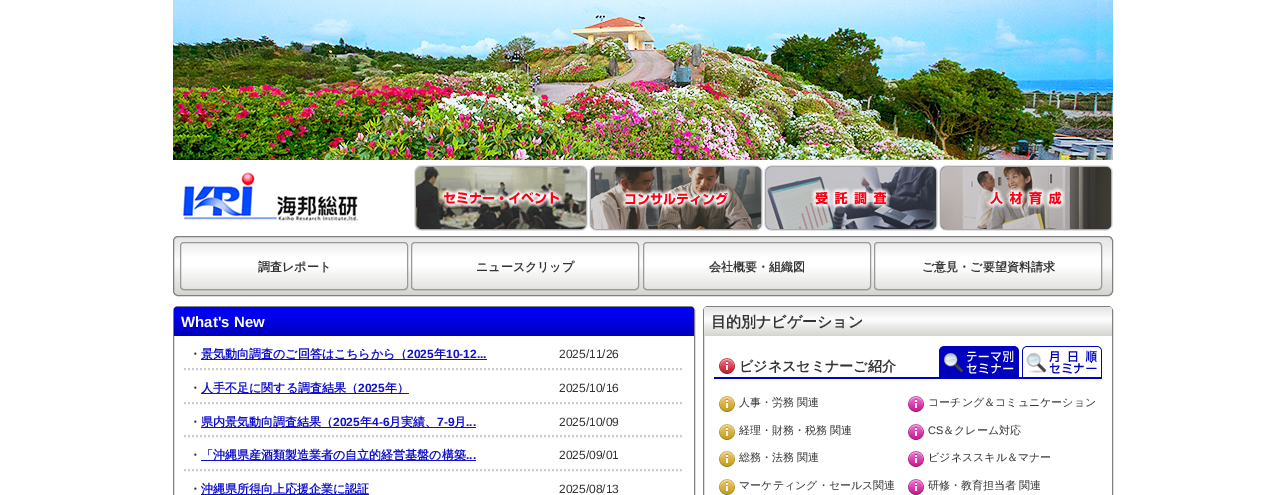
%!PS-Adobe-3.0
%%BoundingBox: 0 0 1286 495
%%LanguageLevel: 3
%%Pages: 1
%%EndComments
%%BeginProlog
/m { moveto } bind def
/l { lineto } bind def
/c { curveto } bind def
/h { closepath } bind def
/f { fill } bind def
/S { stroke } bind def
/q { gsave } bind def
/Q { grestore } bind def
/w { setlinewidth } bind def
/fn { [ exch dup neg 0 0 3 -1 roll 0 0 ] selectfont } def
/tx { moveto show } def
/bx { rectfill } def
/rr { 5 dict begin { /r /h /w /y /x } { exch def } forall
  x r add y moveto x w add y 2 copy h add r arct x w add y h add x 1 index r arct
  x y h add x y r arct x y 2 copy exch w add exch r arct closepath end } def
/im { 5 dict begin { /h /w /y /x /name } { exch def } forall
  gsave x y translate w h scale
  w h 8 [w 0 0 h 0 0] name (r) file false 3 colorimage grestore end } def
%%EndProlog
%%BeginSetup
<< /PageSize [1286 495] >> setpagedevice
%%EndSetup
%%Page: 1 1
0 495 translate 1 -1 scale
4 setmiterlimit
1 setgray
0 0 1286 495 bx
(image0.raw) 173 0 940 160 im
(image1.raw) 183 172 176 49 im
(image2.raw) 414 165 174 66 im
(image3.raw) 589 165 174 66 im
(image4.raw) 764 165 174 66 im
(image5.raw) 939 165 174 66 im
q
173 236 940 60 5 rr clip newpath
q 174 237 m 1112 237 l 1112 295 l 174 295 l h clip newpath
<< /ShadingType 2 /ColorSpace /DeviceRGB /Coords [174 237 174 295] /Extend [true true] /Function << /FunctionType 3 /Domain [0 1] /Functions [<< /FunctionType 2 /Domain [0 1] /C0 [0.894 0.894 0.894] /C1 [0.988 0.988 0.988] /N 1 >> << /FunctionType 2 /Domain [0 1] /C0 [0.988 0.988 0.988] /C1 [0.98 0.98 0.98] /N 1 >> << /FunctionType 2 /Domain [0 1] /C0 [0.98 0.98 0.98] /C1 [0.937 0.937 0.937] /N 1 >> << /FunctionType 2 /Domain [0 1] /C0 [0.937 0.937 0.937] /C1 [0.835 0.835 0.816] /N 1 >>] /Bounds [0.4 0.5 0.6] /Encode [0 1 0 1 0 1 0 1] >> >> shfill Q
Q
0.502 setgray
173.5 236.5 939 59 4.5 rr S
0.808 setgray
180 286 m 180 289 181 291 184 291 c 404 291 l 407 291 408 289 408 286 c 408 288 406 290 404 290 c 184 290 l 182 290 180 288 180 286 c h f
q
180 242 228 48 4 rr clip newpath
q 181 243 m 407 243 l 407 289 l 181 289 l h clip newpath
<< /ShadingType 2 /ColorSpace /DeviceRGB /Coords [181 243 181 289] /Extend [true true] /Function << /FunctionType 3 /Domain [0 1] /Functions [<< /FunctionType 2 /Domain [0 1] /C0 [0.929 0.929 0.929] /C1 [1 1 1] /N 1 >> << /FunctionType 2 /Domain [0 1] /C0 [1 1 1] /C1 [1 1 1] /N 1 >> << /FunctionType 2 /Domain [0 1] /C0 [1 1 1] /C1 [0.976 0.976 0.976] /N 1 >> << /FunctionType 2 /Domain [0 1] /C0 [0.976 0.976 0.976] /C1 [0.89 0.89 0.878] /N 1 >>] /Bounds [0.3 0.5 0.6] /Encode [0 1 0 1 0 1 0 1] >> >> shfill Q
Q
0.6 setgray
180.5 242.5 227 47 3.5 rr S
/WenQuanYiZenHei-Bold 12 fn
0.2 setgray
(調査レポート) 258 271 tx
0.808 setgray
411 286 m 411 289 412 291 415 291 c 635 291 l 638 291 639 289 639 286 c 639 288 637 290 635 290 c 415 290 l 413 290 411 288 411 286 c h f
q
411 242 228 48 4 rr clip newpath
q 412 243 m 638 243 l 638 289 l 412 289 l h clip newpath
<< /ShadingType 2 /ColorSpace /DeviceRGB /Coords [412 243 412 289] /Extend [true true] /Function << /FunctionType 3 /Domain [0 1] /Functions [<< /FunctionType 2 /Domain [0 1] /C0 [0.929 0.929 0.929] /C1 [1 1 1] /N 1 >> << /FunctionType 2 /Domain [0 1] /C0 [1 1 1] /C1 [1 1 1] /N 1 >> << /FunctionType 2 /Domain [0 1] /C0 [1 1 1] /C1 [0.976 0.976 0.976] /N 1 >> << /FunctionType 2 /Domain [0 1] /C0 [0.976 0.976 0.976] /C1 [0.89 0.89 0.878] /N 1 >>] /Bounds [0.3 0.5 0.6] /Encode [0 1 0 1 0 1 0 1] >> >> shfill Q
Q
0.6 setgray
411.5 242.5 227 47 3.5 rr S
0.2 setgray
(ニュースクリップ) 476 271 tx
0.808 setgray
643 286 m 643 289 644 291 647 291 c 867 291 l 870 291 871 289 871 286 c 871 288 869 290 867 290 c 647 290 l 645 290 643 288 643 286 c h f
q
643 242 228 48 4 rr clip newpath
q 644 243 m 870 243 l 870 289 l 644 289 l h clip newpath
<< /ShadingType 2 /ColorSpace /DeviceRGB /Coords [644 243 644 289] /Extend [true true] /Function << /FunctionType 3 /Domain [0 1] /Functions [<< /FunctionType 2 /Domain [0 1] /C0 [0.929 0.929 0.929] /C1 [1 1 1] /N 1 >> << /FunctionType 2 /Domain [0 1] /C0 [1 1 1] /C1 [1 1 1] /N 1 >> << /FunctionType 2 /Domain [0 1] /C0 [1 1 1] /C1 [0.976 0.976 0.976] /N 1 >> << /FunctionType 2 /Domain [0 1] /C0 [0.976 0.976 0.976] /C1 [0.89 0.89 0.878] /N 1 >>] /Bounds [0.3 0.5 0.6] /Encode [0 1 0 1 0 1 0 1] >> >> shfill Q
Q
0.6 setgray
643.5 242.5 227 47 3.5 rr S
0.2 setgray
(会社概要・組織図) 709 271 tx
0.808 setgray
874 286 m 874 289 875 291 878 291 c 1098 291 l 1101 291 1102 289 1102 286 c 1102 288 1100 290 1098 290 c 878 290 l 876 290 874 288 874 286 c h f
q
874 242 228 48 4 rr clip newpath
q 875 243 m 1101 243 l 1101 289 l 875 289 l h clip newpath
<< /ShadingType 2 /ColorSpace /DeviceRGB /Coords [875 243 875 289] /Extend [true true] /Function << /FunctionType 3 /Domain [0 1] /Functions [<< /FunctionType 2 /Domain [0 1] /C0 [0.929 0.929 0.929] /C1 [1 1 1] /N 1 >> << /FunctionType 2 /Domain [0 1] /C0 [1 1 1] /C1 [1 1 1] /N 1 >> << /FunctionType 2 /Domain [0 1] /C0 [1 1 1] /C1 [0.976 0.976 0.976] /N 1 >> << /FunctionType 2 /Domain [0 1] /C0 [0.976 0.976 0.976] /C1 [0.89 0.89 0.878] /N 1 >>] /Bounds [0.3 0.5 0.6] /Encode [0 1 0 1 0 1 0 1] >> >> shfill Q
Q
0.6 setgray
874.5 242.5 227 47 3.5 rr S
0.2 setgray
(ご意見・ご要望資料請求) 922 271 tx
0.502 setgray
173.5 306.5 521 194 4.5 rr S
q 178 307 m 690 307 l 692 307 694 309 694 311 c 694 336 l 174 336 l 174 311 l 174 309 176 307 178 307 c h clip newpath
<< /ShadingType 2 /ColorSpace /DeviceRGB /Coords [174 307 174 336] /Extend [true true] /Function << /FunctionType 2 /Domain [0 1] /C0 [0 0 1] /C1 [0 0 0.741] /N 1 >> >> shfill Q
/LiberationSans-Bold 15 fn
1 setgray
(What's New) 181 327 tx
0.8 setgray
2 w
[2 2] 0 setdash
184 369 m 684 369 l S
/WenQuanYiZenHei-Bold 12 fn
0.2 setgray
(・) 189 358 tx
0.067 0.067 0.8 setrgbcolor
201 359 286 1 bx
(景気動向調査のご回答はこちらから（) 201 358 tx
/LiberationSans-Bold 12 fn
(2025) 407 358 tx
/WenQuanYiZenHei-Bold 12 fn
(年) 434 358 tx
/LiberationSans-Bold 12 fn
(10-12...) 446 358 tx
/LiberationSans-Regular 12 fn
0.2 setgray
(2025/11/26) 559 358 tx
0.8 setgray
184 403 m 684 403 l S
/WenQuanYiZenHei-Bold 12 fn
0.2 setgray
(・) 189 392 tx
0.067 0.067 0.8 setrgbcolor
201 393 208 1 bx
(人手不足に関する調査結果（) 201 392 tx
/LiberationSans-Bold 12 fn
(2025) 358 392 tx
/WenQuanYiZenHei-Bold 12 fn
(年）) 385 392 tx
/LiberationSans-Regular 12 fn
0.2 setgray
(2025/10/16) 559 392 tx
0.8 setgray
184 436 m 684 436 l S
/WenQuanYiZenHei-Bold 12 fn
0.2 setgray
(・) 189 426 tx
0.067 0.067 0.8 setrgbcolor
201 427 275 1 bx
(県内景気動向調査結果（) 201 426 tx
/LiberationSans-Bold 12 fn
(2025) 333 426 tx
/WenQuanYiZenHei-Bold 12 fn
(年) 360 426 tx
/LiberationSans-Bold 12 fn
(4-6) 372 426 tx
/WenQuanYiZenHei-Bold 12 fn
(月実績、) 389 426 tx
/LiberationSans-Bold 12 fn
(7-9) 437 426 tx
/WenQuanYiZenHei-Bold 12 fn
(月) 454 426 tx
/LiberationSans-Bold 12 fn
(...) 466 426 tx
/LiberationSans-Regular 12 fn
0.2 setgray
(2025/10/09) 559 426 tx
0.8 setgray
184 470 m 684 470 l S
/WenQuanYiZenHei-Bold 12 fn
0.2 setgray
(・) 189 459 tx
0.067 0.067 0.8 setrgbcolor
201 460 275 1 bx
(「沖縄県産酒類製造業者の自立的経営基盤の構築) 201 459 tx
/LiberationSans-Bold 12 fn
(...) 466 459 tx
/LiberationSans-Regular 12 fn
0.2 setgray
(2025/09/01) 559 459 tx
/WenQuanYiZenHei-Bold 12 fn
(・) 189 493 tx
0.067 0.067 0.8 setrgbcolor
201 494 168 1 bx
(沖縄県所得向上応援企業に認証) 201 493 tx
/LiberationSans-Regular 12 fn
0.2 setgray
(2025/08/13) 559 493 tx
0.502 setgray
1 w
[] 0 setdash
703.5 306.5 409 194 4.5 rr S
q 708 307 m 1108 307 l 1110 307 1112 309 1112 311 c 1112 336 l 704 336 l 704 311 l 704 309 706 307 708 307 c h clip newpath
<< /ShadingType 2 /ColorSpace /DeviceRGB /Coords [704 307 704 336] /Extend [true true] /Function << /FunctionType 3 /Domain [0 1] /Functions [<< /FunctionType 2 /Domain [0 1] /C0 [0.894 0.894 0.894] /C1 [0.988 0.988 0.988] /N 1 >> << /FunctionType 2 /Domain [0 1] /C0 [0.988 0.988 0.988] /C1 [0.98 0.98 0.98] /N 1 >> << /FunctionType 2 /Domain [0 1] /C0 [0.98 0.98 0.98] /C1 [0.937 0.937 0.937] /N 1 >> << /FunctionType 2 /Domain [0 1] /C0 [0.937 0.937 0.937] /C1 [0.835 0.835 0.816] /N 1 >>] /Bounds [0.4 0.5 0.6] /Encode [0 1 0 1 0 1 0 1] >> >> shfill Q
/WenQuanYiZenHei-Bold 15 fn
0.2 setgray
(目的別ナビゲーション) 711 327 tx
(image6.raw) 719 358 16 16 im
0 0 0.745 setrgbcolor
714 377 388 2 bx
/WenQuanYiZenHei-Bold 14 fn
0.2 setgray
(ビジネスセミナーご紹介) 739 371 tx
(image7.raw) 939 346 80 31 im
(image8.raw) 1022 346 80 31 im
(image9.raw) 719 396 16 16 im
/WenQuanYiZenHei-Medium 11 fn
(人事・労務 関連) 739 406 tx
(image10.raw) 908 396 16 16 im
(コーチング＆コミュニケーション) 928 406 tx
(image9.raw) 719 424 16 16 im
(経理・財務・税務 関連) 739 434 tx
(image10.raw) 908 424 16 16 im
/LiberationSans-Regular 11 fn
(CS) 928 434 tx
/WenQuanYiZenHei-Medium 11 fn
(＆クレーム対応) 943 434 tx
(image9.raw) 719 451 16 16 im
(総務・法務 関連) 739 461 tx
(image10.raw) 908 451 16 16 im
(ビジネススキル＆マナー) 928 461 tx
(image9.raw) 719 479 16 16 im
(マーケティング・セールス関連) 739 489 tx
(image10.raw) 908 479 16 16 im
(研修・教育担当者 関連) 928 489 tx
showpage
%%EOF
